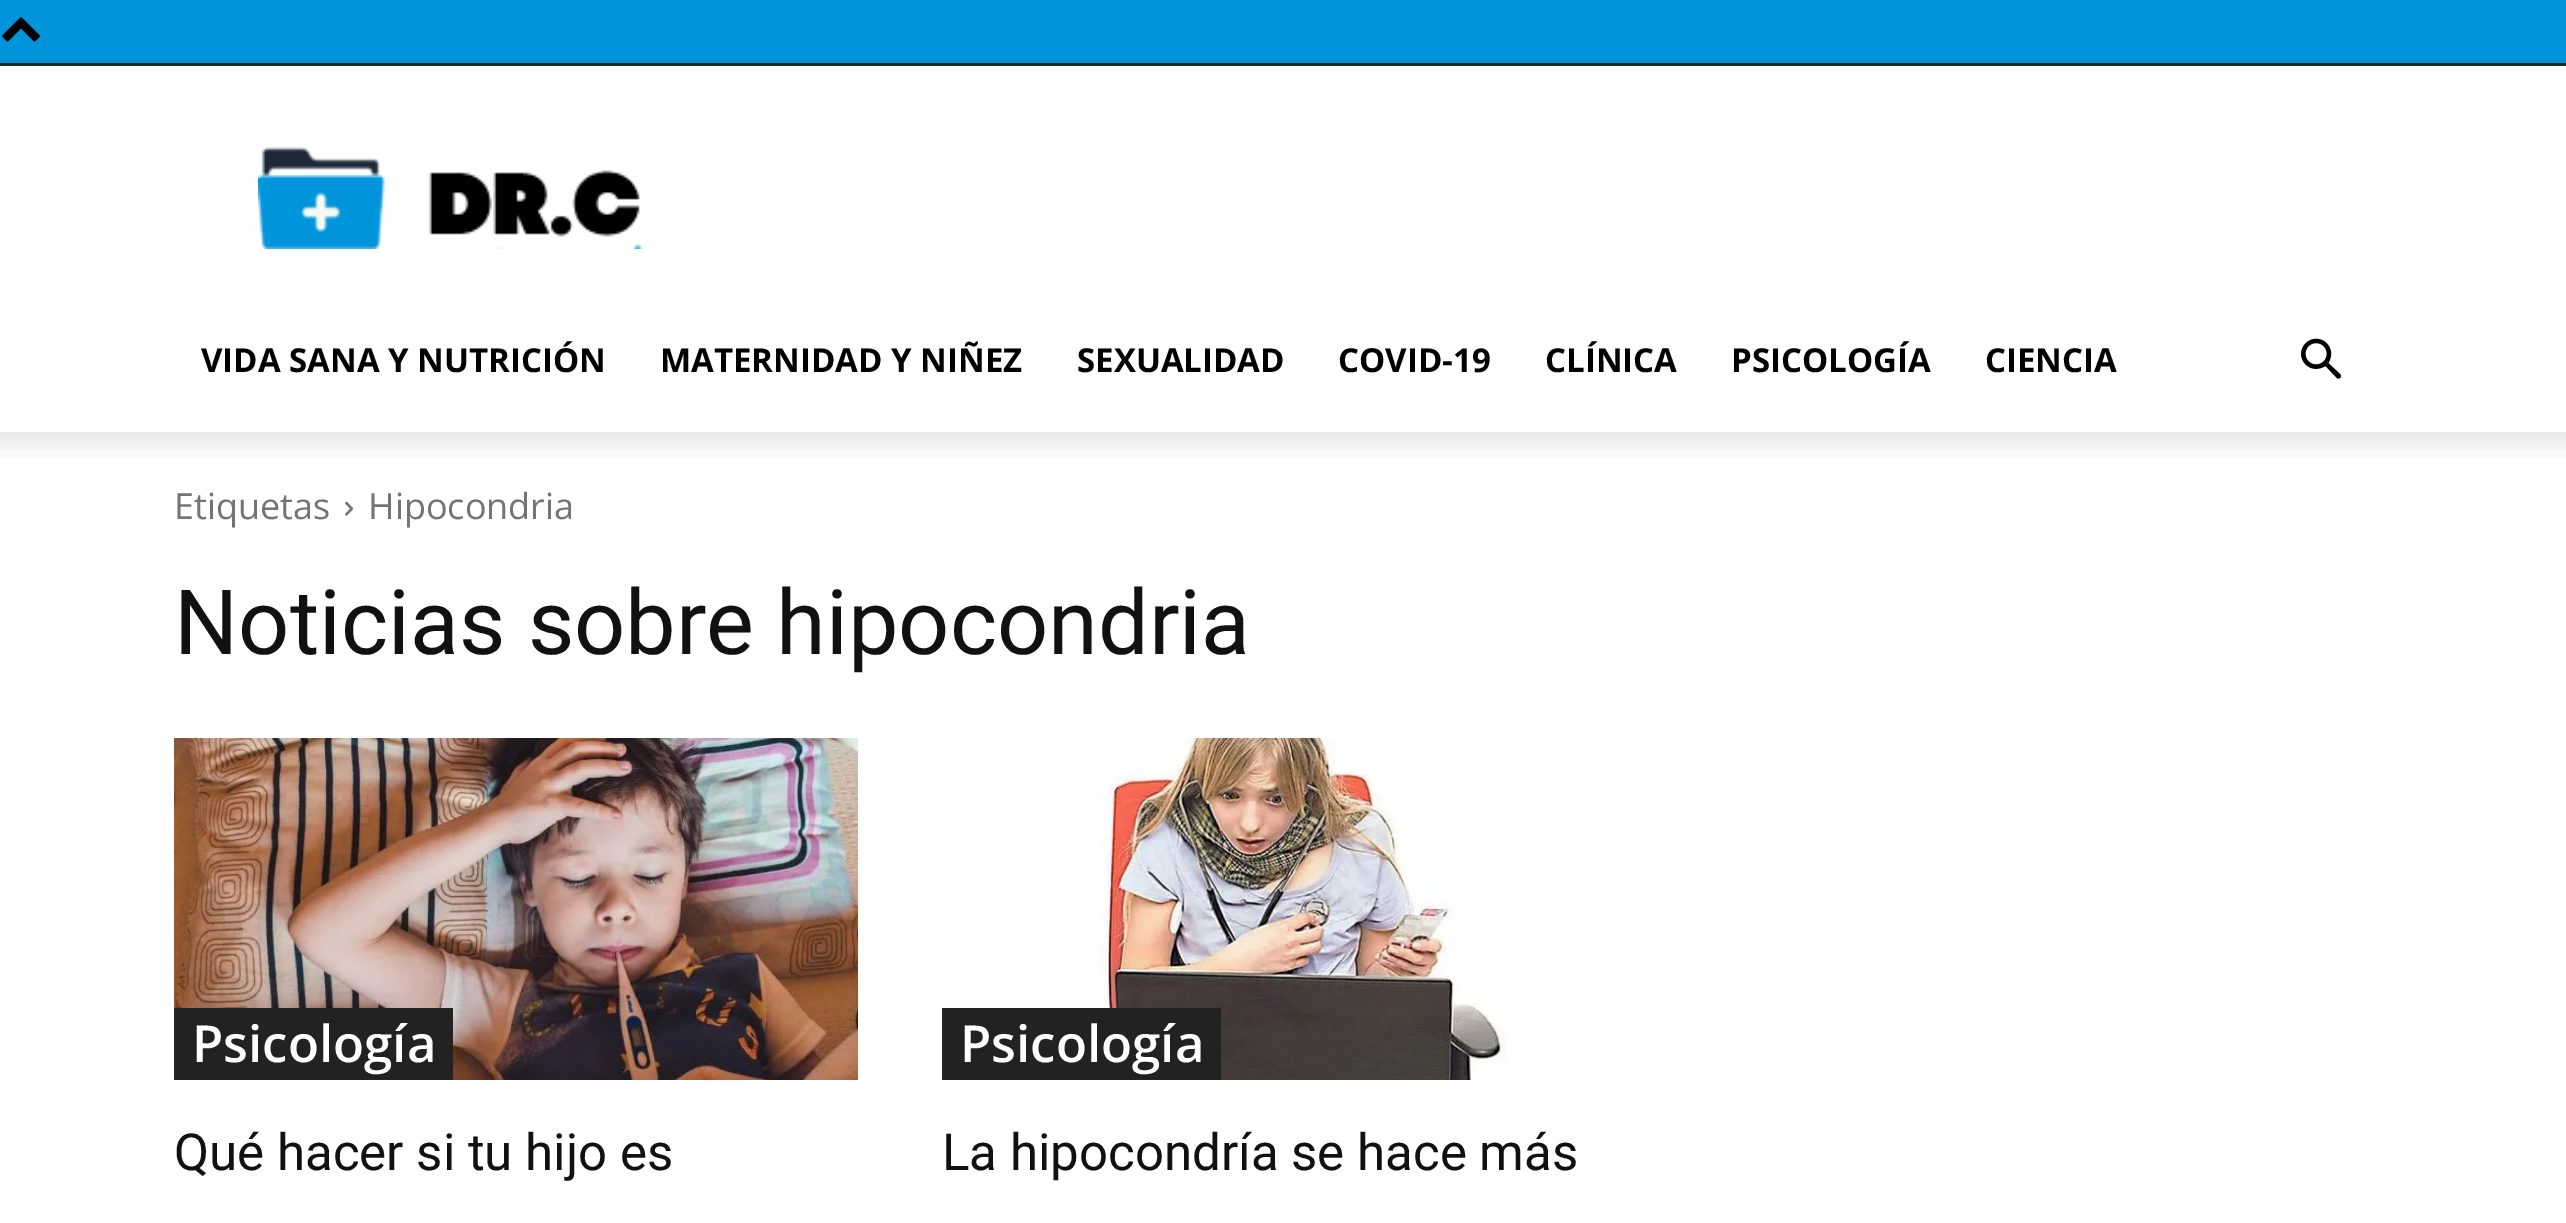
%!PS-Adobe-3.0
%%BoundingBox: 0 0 2566 1223
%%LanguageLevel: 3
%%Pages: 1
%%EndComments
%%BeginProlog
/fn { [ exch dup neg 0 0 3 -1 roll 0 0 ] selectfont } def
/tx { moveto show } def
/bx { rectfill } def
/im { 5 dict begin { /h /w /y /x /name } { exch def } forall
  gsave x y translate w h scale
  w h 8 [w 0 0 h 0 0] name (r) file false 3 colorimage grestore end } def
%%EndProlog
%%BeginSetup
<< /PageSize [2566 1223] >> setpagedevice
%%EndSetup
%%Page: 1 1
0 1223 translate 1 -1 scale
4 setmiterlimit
1 setgray
0 0 2566 1223 bx
0 0.584 0.855 setrgbcolor
0 0 2566 63 bx
(image0.raw) 2 17 38 25 im
0.133 setgray
0 63 2566 3 bx
(image1.raw) 258 147 386 102 im
/OpenSans-Bold 33 fn
0 setgray
(VIDA SANA Y NUTRICIÓN) 201 372 tx
(MATERNIDAD Y NIÑEZ) 660 372 tx
(SEXUALIDAD) 1077 372 tx
(COVID-19) 1338 372 tx
(CLÍNICA) 1545 372 tx
(PSICOLOGÍA) 1731 372 tx
(CIENCIA) 1985 372 tx
(image2.raw) 2301 338 41 41 im
(image3.raw) 0 432 2566 26 im
/OpenSans-Regular 36 fn
0.455 setgray
(Etiquetas) 174 519 tx
(image4.raw) 345 501 9 15 im
(Hipocondria) 368 519 tx
/Roboto-Regular 90 fn
0.067 setgray
(Noticias sobre hipocondria) 174 654 tx
(image5.raw) 174 738 684 342 im
0.133 setgray
174 1008 279 72 bx
/OpenSans-SemiBold 51 fn
1 setgray
(Psicología) 192 1062 tx
/Roboto-Regular 51 fn
0.067 setgray
(Qué hacer si tu hijo es) 174 1170 tx
(image6.raw) 1049 738 458 342 im
0.133 setgray
942 1008 279 72 bx
/OpenSans-SemiBold 51 fn
1 setgray
(Psicología) 960 1062 tx
/Roboto-Regular 51 fn
0.067 setgray
(La hipocondría se hace más) 942 1170 tx
showpage
%%EOF
